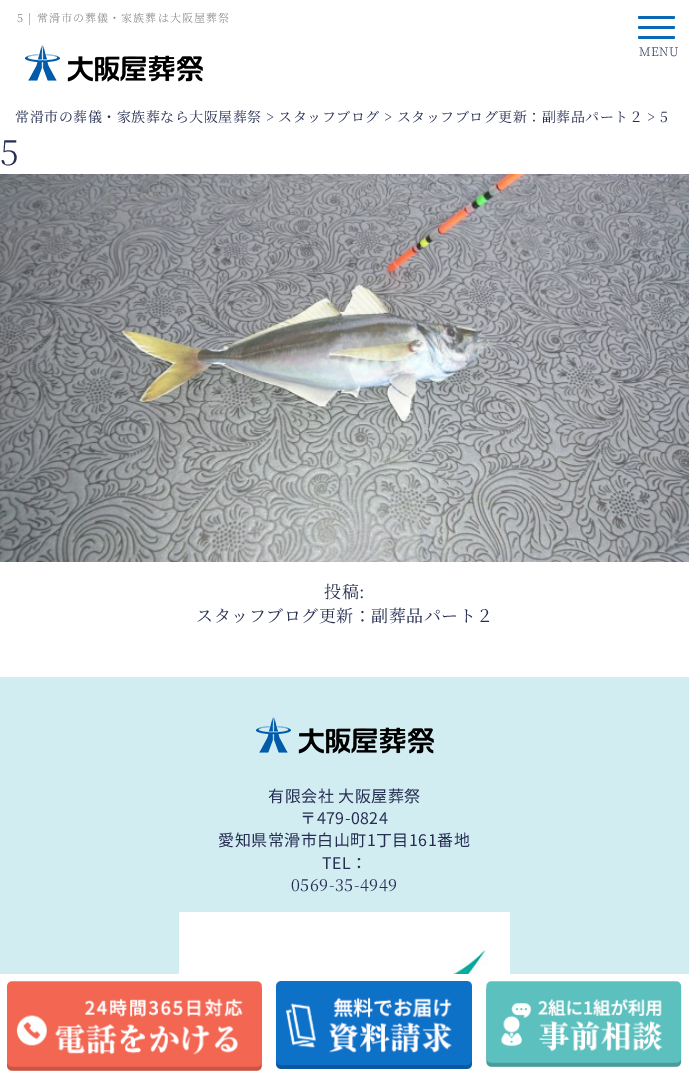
%!PS-Adobe-3.0
%%BoundingBox: 0 0 689 1078
%%LanguageLevel: 3
%%Pages: 1
%%EndComments
%%BeginProlog
/m { moveto } bind def
/f { fill } bind def
/fn { [ exch dup neg 0 0 3 -1 roll 0 0 ] selectfont } def
/bx { rectfill } def
/rr { 5 dict begin { /r /h /w /y /x } { exch def } forall
  x r add y moveto x w add y 2 copy h add r arct x w add y h add x 1 index r arct
  x y h add x y r arct x y 2 copy exch w add exch r arct closepath end } def
/im { 5 dict begin { /h /w /y /x /name } { exch def } forall
  gsave x y translate w h scale
  w h 8 [w 0 0 h 0 0] name (r) file false 3 colorimage grestore end } def
%%EndProlog
%%BeginSetup
<< /PageSize [689 1078] >> setpagedevice
%%EndSetup
%%Page: 1 1
0 1078 translate 1 -1 scale
4 setmiterlimit
1 setgray
0 0 689 1078 bx
/NotoSerifJP-Light 11 fn
0.498 0.494 0.494 setrgbcolor
17 22 m 1.1 0 (5 | 常滑市の葬儀・家族葬は大阪屋葬祭) ashow
(image0.raw) 25 45 178 37 im
0.047 0.404 0.714 setrgbcolor
638 16 37 3 1.5 rr f
638 26 37 3 1.5 rr f
638 36 37 3 1.5 rr f
/NotoSerifJP-ExtraLight 12 fn
0.153 0.18 0.325 setrgbcolor
639 56 m 0.5 0 (MENU) ashow
/NotoSerifJP-Regular 14 fn
15 122 m 0.5 0 (常滑市の葬儀・家族葬なら大阪屋葬祭 > スタッフブログ > スタッフブログ更新：副葬品パート２ > 5) ashow
/NotoSerifJP-Light 34 fn
0 165 m 0.5 0 (5) ashow
(image1.raw) 0 174 689 388 im
/NotoSerifJP-Regular 17 fn
324 598 m 0.5 0 (投稿:) ashow
196 622 m 0.5 0 (スタッフブログ更新：副葬品パート２) ashow
0.82 0.929 0.949 setrgbcolor
0 677 689 297 bx
(image2.raw) 256 717 178 37 im
/NotoSansJP-Regular 16 fn
0.153 0.18 0.325 setrgbcolor
268 802 m 0.5 0 (有限会社 大阪屋葬祭) ashow
300 824 m 0.5 0 (〒479-0824) ashow
218 846 m 0.5 0 (愛知県常滑市白山町1丁目161番地) ashow
322 869 m 0.5 0 (TEL：) ashow
/NotoSerifJP-Regular 16 fn
291 891 m 0.5 0 (0569-35-4949) ashow
(image3.raw) 179 912 331 62 im
(image4.raw) 7 981 255 90 im
(image5.raw) 276 981 196 88 im
(image6.raw) 486 981 196 86 im
showpage
%%EOF
